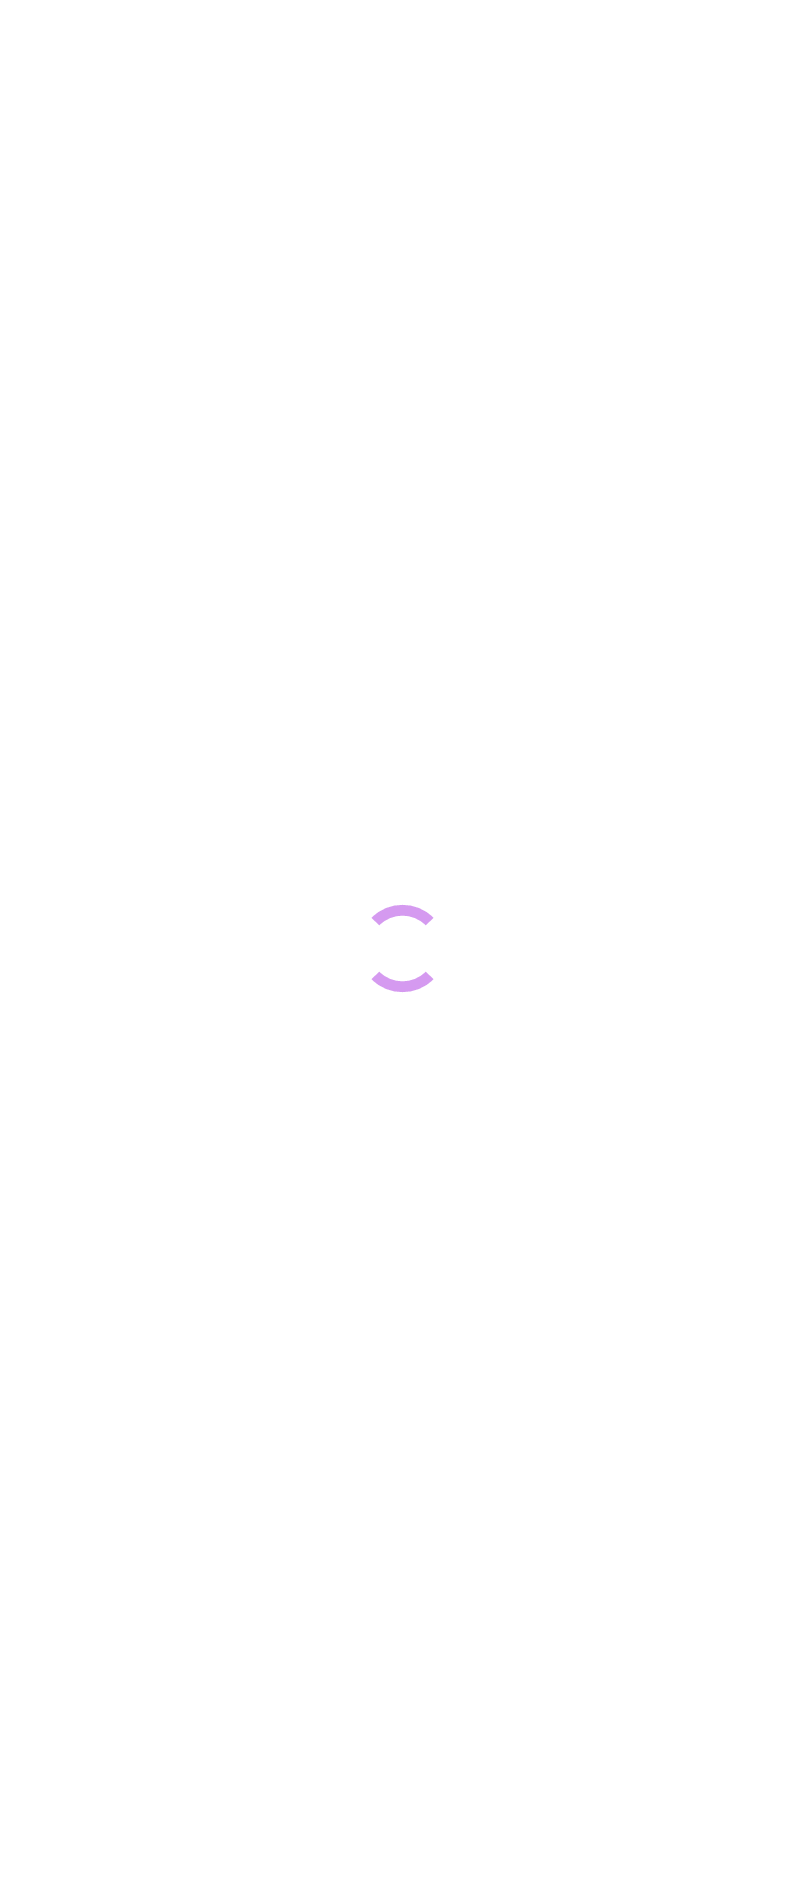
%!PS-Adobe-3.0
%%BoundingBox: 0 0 802 1896
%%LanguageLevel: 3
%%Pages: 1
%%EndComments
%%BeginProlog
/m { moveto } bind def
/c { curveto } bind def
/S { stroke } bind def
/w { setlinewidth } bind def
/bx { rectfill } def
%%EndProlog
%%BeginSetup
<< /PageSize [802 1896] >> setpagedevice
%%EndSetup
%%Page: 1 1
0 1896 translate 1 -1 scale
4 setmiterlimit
1 setgray
0 0 802 1896 bx
0.835 0.604 0.941 setrgbcolor
10.5 w
375.5 921.5 m 390 906.5 415 906.5 429.5 921.5 c S
429.5 975.5 m 415 990.5 390 990.5 375.5 975.5 c S
showpage
%%EOF
